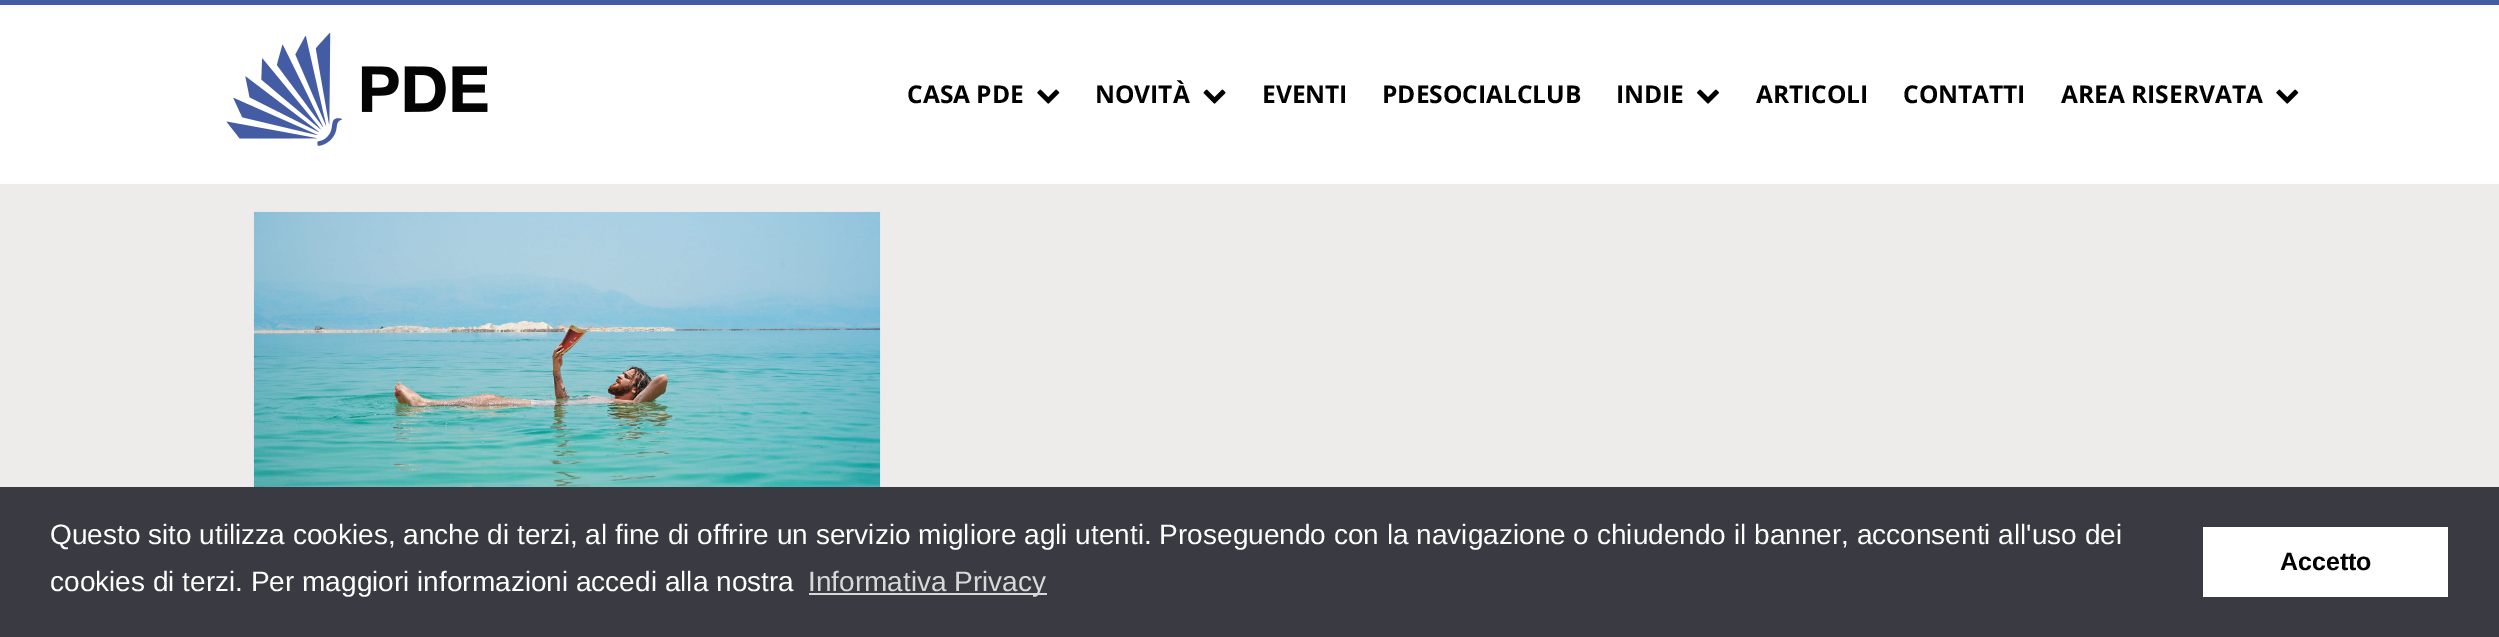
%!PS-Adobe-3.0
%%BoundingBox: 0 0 2499 637
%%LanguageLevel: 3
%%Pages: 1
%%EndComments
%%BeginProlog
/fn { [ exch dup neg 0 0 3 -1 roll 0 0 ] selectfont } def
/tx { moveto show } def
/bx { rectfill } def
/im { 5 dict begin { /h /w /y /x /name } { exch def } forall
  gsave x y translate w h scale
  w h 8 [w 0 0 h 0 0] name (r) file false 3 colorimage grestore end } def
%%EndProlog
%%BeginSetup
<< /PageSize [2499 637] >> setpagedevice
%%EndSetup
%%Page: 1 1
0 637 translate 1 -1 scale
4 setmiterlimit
0.933 0.925 0.922 setrgbcolor
0 0 2499 637 bx
1 setgray
0 5 2499 179 bx
0.267 0.361 0.643 setrgbcolor
0 0 2499 5 bx
(image0.raw) 226 32 262 114 im
/OpenSans-Bold 24.5 fn
0 setgray
(CASA PDE) 907 103 tx
(image1.raw) 1037 89 23 15 im
(NOVITÀ) 1095 103 tx
(image2.raw) 1203 89 23 15 im
(EVENTI) 1262 103 tx
(PDESOCIALCLUB) 1382 103 tx
(INDIE) 1616 103 tx
(image3.raw) 1697 89 22 15 im
(ARTICOLI) 1756 103 tx
(CONTATTI) 1903 103 tx
(AREA RISERVATA) 2061 103 tx
(image1.raw) 2276 89 23 15 im
(image4.raw) 253 211 628 276 im
0.227 0.227 0.259 setrgbcolor
0 487 2499 150 bx
/LiberationSans-Regular 28 fn
1 setgray
(Questo sito utilizza cookies, anche di terzi, al fine di offrire un servizio migliore agli utenti. Proseguendo con la navigazione o chiudendo il banner, acconsenti all'uso dei) 50 544 tx
(cookies di terzi. Per maggiori informazioni accedi alla nostra) 50 591 tx
0.847 0.847 0.851 setrgbcolor
809 593 238 2 bx
(Informativa Privacy) 808 591 tx
1 setgray
2203 527 245 70 bx
/LiberationSans-Bold 25 fn
0 setgray
(Accetto) 2280 570 tx
showpage
%%EOF
